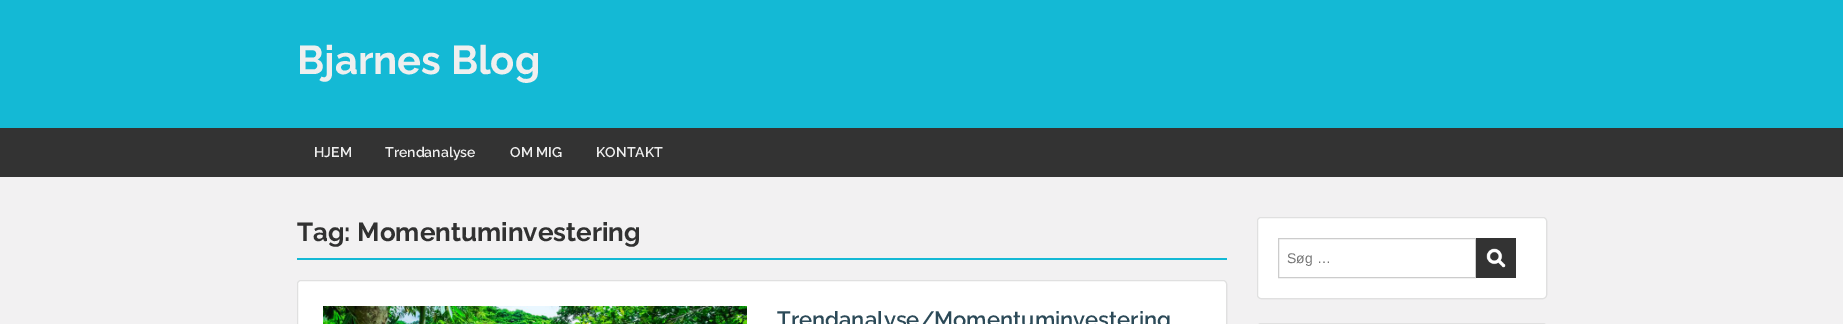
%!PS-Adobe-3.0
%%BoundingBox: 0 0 1843 324
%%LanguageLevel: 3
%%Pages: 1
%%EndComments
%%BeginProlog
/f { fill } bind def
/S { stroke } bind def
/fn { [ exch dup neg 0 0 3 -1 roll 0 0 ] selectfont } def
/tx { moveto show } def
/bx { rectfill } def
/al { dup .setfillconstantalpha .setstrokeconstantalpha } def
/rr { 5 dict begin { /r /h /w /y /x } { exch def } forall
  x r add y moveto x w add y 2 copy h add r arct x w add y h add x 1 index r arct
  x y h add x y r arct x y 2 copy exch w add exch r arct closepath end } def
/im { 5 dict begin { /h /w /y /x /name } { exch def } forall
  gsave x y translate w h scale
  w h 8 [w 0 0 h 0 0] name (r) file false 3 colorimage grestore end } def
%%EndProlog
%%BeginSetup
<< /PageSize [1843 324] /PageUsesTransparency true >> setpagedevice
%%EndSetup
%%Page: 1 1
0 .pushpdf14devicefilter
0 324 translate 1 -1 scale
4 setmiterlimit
0.949 0.945 0.949 setrgbcolor
0 0 1843 324 bx
0.078 0.725 0.835 setrgbcolor
0 0 1843 128 bx
/Raleway-Bold 40 fn
0.937 setgray
(Bjarnes Blog) 297 74 tx
0.2 setgray
0 128 1843 49 bx
/Raleway-SemiBold 14 fn
0.937 setgray
(HJEM) 314 157 tx
(Trendanalyse) 385 157 tx
(OM MIG) 510 157 tx
(KONTAKT) 596 157 tx
0.078 0.725 0.835 setrgbcolor
297 258 930 2 bx
/Raleway-Bold 26 fn
0.192 setgray
(Tag: Momentuminvestering) 297 241 tx
1 setgray
297 280 930 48 4 rr f
0.12 al
0 setgray
297.5 280.5 929 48 3.5 rr S
1 al
(image0.raw) 323 306 424 18 im
/Raleway-SemiBold 22 fn
0.173 0.29 0.345 setrgbcolor
(Trendanalyse/Momentuminvestering) 777 327 tx
1 setgray
1257 217 290 82 4 rr f
0.12 al
0 setgray
1257.5 217.5 289 81 3.5 rr S
1 al
0.8 setgray
1278.5 238.5 197 39 rectstroke
/LiberationSans-Regular 14 fn
0.459 setgray
(Søg …) 1287 263 tx
0.2 setgray
1476 238 40 40 bx
(image1.raw) 1486 248 20 20 im
1 setgray
1257 323 290 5 4 rr f
0.12 al
0 setgray
1257.5 323.5 289 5 3.5 rr S
.poppdf14devicefilter showpage
%%EOF
